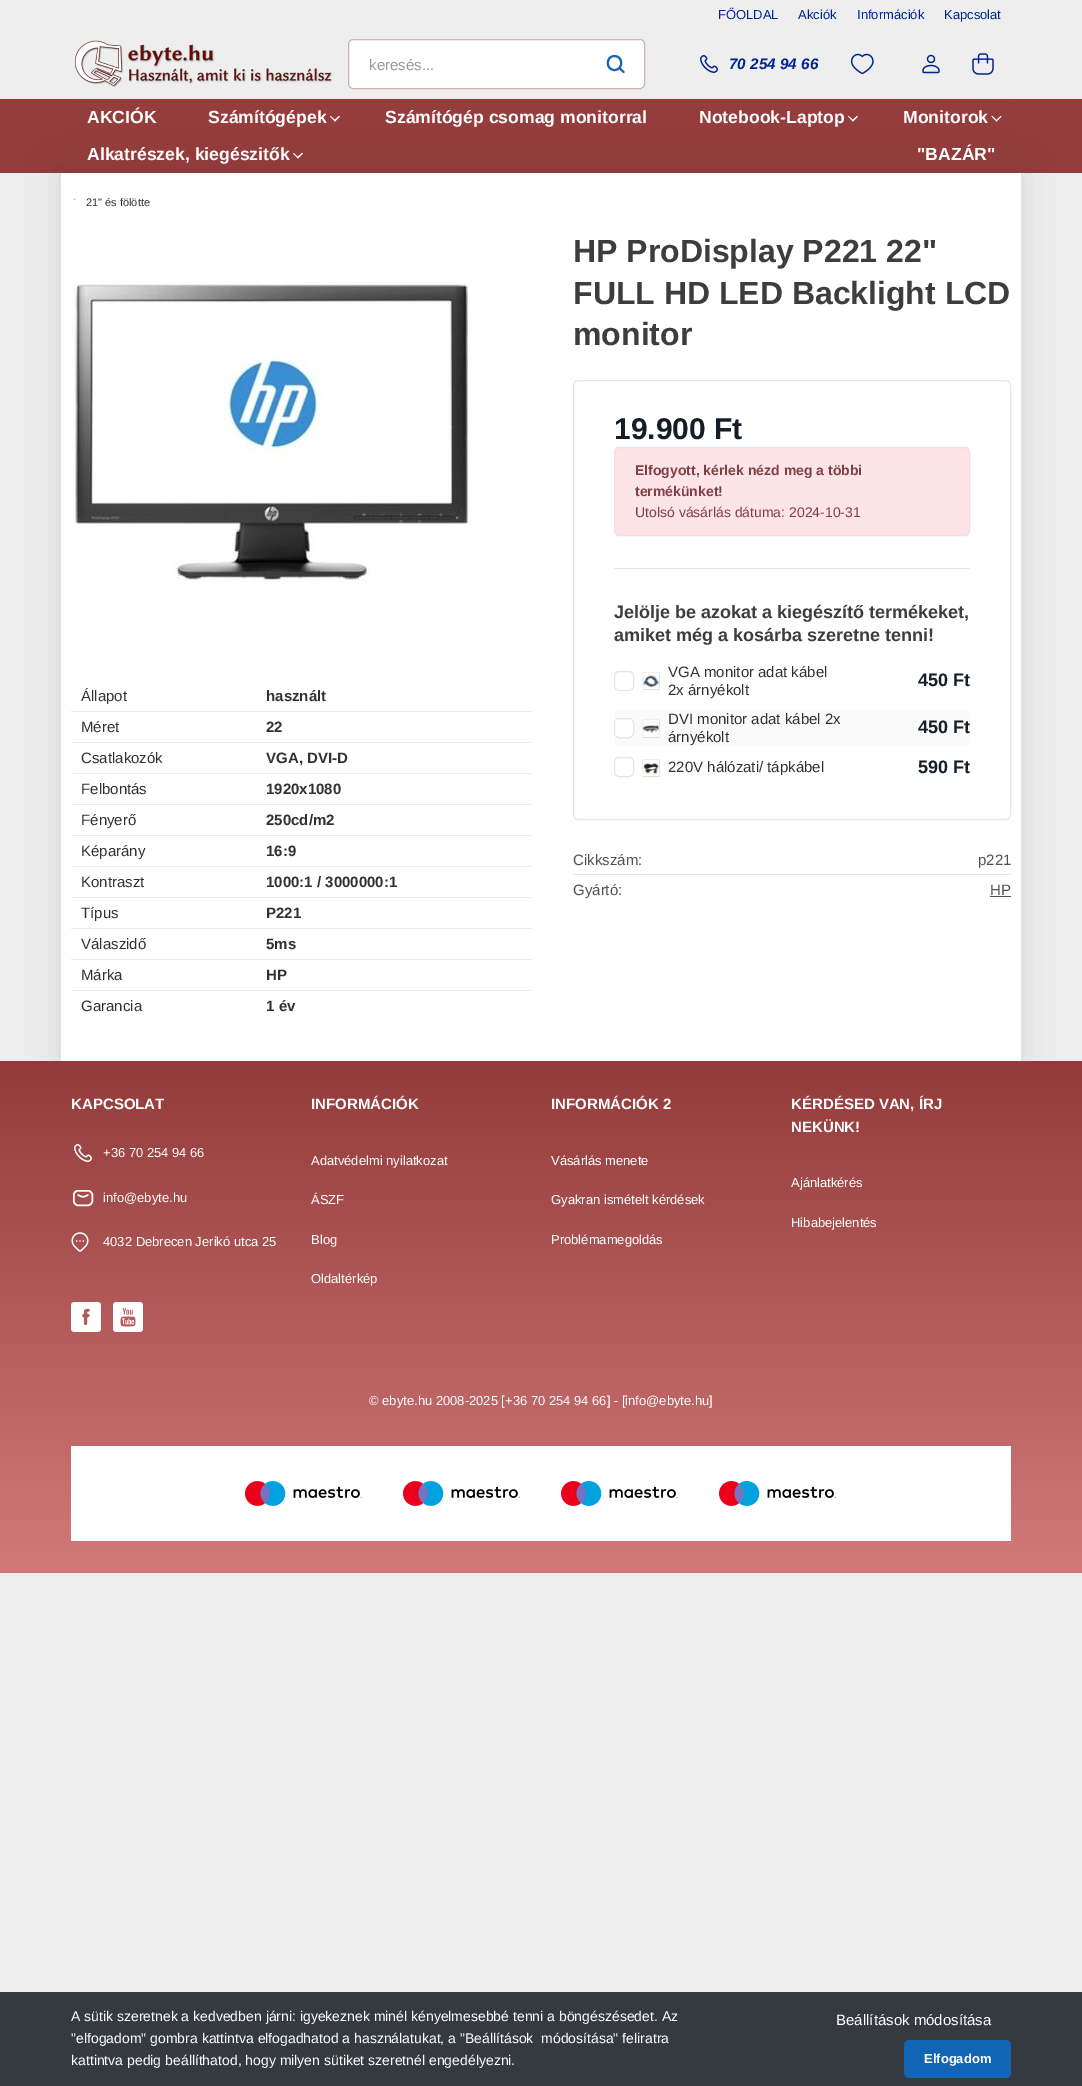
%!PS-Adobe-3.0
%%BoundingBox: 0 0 1082 2086
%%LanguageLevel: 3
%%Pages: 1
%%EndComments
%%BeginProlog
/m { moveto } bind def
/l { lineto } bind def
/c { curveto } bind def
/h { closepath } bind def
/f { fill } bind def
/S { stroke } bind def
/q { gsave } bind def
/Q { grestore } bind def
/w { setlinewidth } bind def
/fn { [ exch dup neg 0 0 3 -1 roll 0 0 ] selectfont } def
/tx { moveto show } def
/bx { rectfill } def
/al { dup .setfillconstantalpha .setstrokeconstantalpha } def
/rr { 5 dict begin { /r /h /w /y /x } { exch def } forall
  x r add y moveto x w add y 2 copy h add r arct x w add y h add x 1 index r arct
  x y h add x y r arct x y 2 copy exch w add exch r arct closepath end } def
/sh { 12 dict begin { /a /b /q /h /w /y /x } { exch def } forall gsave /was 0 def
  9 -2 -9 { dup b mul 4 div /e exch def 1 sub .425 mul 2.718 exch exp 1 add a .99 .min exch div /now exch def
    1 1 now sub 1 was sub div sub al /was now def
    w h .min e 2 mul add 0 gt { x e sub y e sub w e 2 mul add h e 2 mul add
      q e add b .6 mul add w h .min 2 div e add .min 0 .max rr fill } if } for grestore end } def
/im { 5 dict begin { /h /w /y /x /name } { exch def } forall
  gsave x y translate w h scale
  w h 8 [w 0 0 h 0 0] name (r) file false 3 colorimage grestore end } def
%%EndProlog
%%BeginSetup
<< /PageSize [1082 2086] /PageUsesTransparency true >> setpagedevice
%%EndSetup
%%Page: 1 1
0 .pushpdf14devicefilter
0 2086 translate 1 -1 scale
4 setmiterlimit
0.933 setgray
0 0 1082 2086 bx
/LiberationSans-Regular 13 fn
0 0.141 0.557 setrgbcolor
(FŐOLDAL) 718 19 tx
(Akciók) 798 19 tx
(Információk) 857 19 tx
(Kapcsolat) 944 19 tx
(image0.raw) 74 40 258 47 im
1 setgray
348 39 297 50 5 rr f
0.4 al
0.576 0.227 0.227 setrgbcolor
348.5 39.5 296 49 4.5 rr S
/LiberationSans-Regular 15 fn
1 al
0.592 0.596 0.6 setrgbcolor
(keresés...) 369 70 tx
0.071 0.396 0.71 setrgbcolor
2 w
1 setlinecap
1 setlinejoin
623.5 72 m 619.5 68 l 614.5 70 m 605.5 70 605.5 56 614.5 56 c 623.5 56 623.5 70 614.5 70 c h S
(image1.raw) 700 55 18 18 im
/LiberationSans-BoldItalic 15.25 fn
0 0.141 0.557 setrgbcolor
(70 254 94 66) 729 69 tx
(image2.raw) 850 53 24 22 im
(image3.raw) 922 54 18 20 im
(image4.raw) 972 53 22 22 im
0.584 0.235 0.235 setrgbcolor
0 99 1082 74 bx
0.91 0.91 0.929 setrgbcolor
71 98 940 1 bx
0 setgray
61 173 960 888 0 17.5 0.1 sh
/LiberationSans-Bold 17.6 fn
1 setgray
(AKCIÓK) 87 123 tx
(Számítógépek) 208 123 tx
339 116 m 340 116.5 l 335 121.5 l 334 120.5 l h f
330.5 116 m 335.5 120.5 l 335 121.5 l 330 116.5 l h f
(Számítógép csomag monitorral) 385 123 tx
(Notebook-Laptop) 699 123 tx
857 116 m 858 116.5 l 853 121.5 l 852 120.5 l h f
848.5 116 m 853.5 120.5 l 853 121.5 l 848 116.5 l h f
(Monitorok) 903 123 tx
1000.5 116 m 1001.5 116.5 l 996.5 121.5 l 996 120.5 l h f
992.5 116 m 997 120.5 l 996.5 121.5 l 991.5 116.5 l h f
(Alkatrészek, kiegészitők) 87 160 tx
302 153 m 303 153.5 l 298 158.5 l 297 157.5 l h f
293.5 153 m 298.5 157.5 l 298 158.5 l 293 153.5 l h f
("BAZÁR") 917 160 tx
61 173 960 888 bx
(image5.raw) 73 198 3 2 im
/LiberationSans-Regular 11 fn
0.184 0.192 0.196 setrgbcolor
(21" és fölötte) 86 206 tx
(image6.raw) 71 282 400 300 im
/LiberationSans-Regular 15 fn
(Állapot) 81 701 tx
/LiberationSans-Bold 15 fn
(használt) 266 701 tx
/LiberationSans-Regular 15 fn
(Méret) 81 732 tx
0.914 0.925 0.937 setrgbcolor
71 711 461 1 bx
/LiberationSans-Bold 15 fn
0.184 0.192 0.196 setrgbcolor
(22) 266 732 tx
/LiberationSans-Regular 15 fn
(Csatlakozók) 81 763 tx
0.914 0.925 0.937 setrgbcolor
71 742 461 1 bx
/LiberationSans-Bold 15 fn
0.184 0.192 0.196 setrgbcolor
(VGA, DVI-D) 266 763 tx
/LiberationSans-Regular 15 fn
(Felbontás) 81 794 tx
0.914 0.925 0.937 setrgbcolor
71 773 461 1 bx
/LiberationSans-Bold 15 fn
0.184 0.192 0.196 setrgbcolor
(1920x1080) 266 794 tx
/LiberationSans-Regular 15 fn
(Fényerő) 81 825 tx
0.914 0.925 0.937 setrgbcolor
71 804 461 1 bx
/LiberationSans-Bold 15 fn
0.184 0.192 0.196 setrgbcolor
(250cd/m2) 266 825 tx
/LiberationSans-Regular 15 fn
(Képarány) 81 856 tx
0.914 0.925 0.937 setrgbcolor
71 835 461 1 bx
/LiberationSans-Bold 15 fn
0.184 0.192 0.196 setrgbcolor
(16:9) 266 856 tx
/LiberationSans-Regular 15 fn
(Kontraszt) 81 887 tx
0.914 0.925 0.937 setrgbcolor
71 866 461 1 bx
/LiberationSans-Bold 15 fn
0.184 0.192 0.196 setrgbcolor
(1000:1 / 3000000:1) 266 887 tx
/LiberationSans-Regular 15 fn
(Típus) 81 918 tx
0.914 0.925 0.937 setrgbcolor
71 897 461 1 bx
/LiberationSans-Bold 15 fn
0.184 0.192 0.196 setrgbcolor
(P221) 266 918 tx
/LiberationSans-Regular 15 fn
(Válaszidő) 81 949 tx
0.914 0.925 0.937 setrgbcolor
71 928 461 1 bx
/LiberationSans-Bold 15 fn
0.184 0.192 0.196 setrgbcolor
(5ms) 266 949 tx
/LiberationSans-Regular 15 fn
(Márka) 81 980 tx
0.914 0.925 0.937 setrgbcolor
71 959 461 1 bx
/LiberationSans-Bold 15 fn
0.184 0.192 0.196 setrgbcolor
(HP) 266 980 tx
/LiberationSans-Regular 15 fn
(Garancia) 81 1011 tx
0.914 0.925 0.937 setrgbcolor
71 990 461 1 bx
/LiberationSans-Bold 15 fn
0.184 0.192 0.196 setrgbcolor
(1 év) 266 1011 tx
/LiberationSans-Bold 32 fn
0.239 setgray
(HP ProDisplay P221 22") 573 262 tx
(FULL HD LED Backlight LCD) 573 304 tx
(monitor) 573 345 tx
0.894 0.894 0.918 setrgbcolor
1 w
0 setlinecap
0 setlinejoin
573.5 380.5 437 439 4.5 rr S
/LiberationSans-Bold 30 fn
0.082 0.118 0.149 setrgbcolor
(19.900 Ft) 614 439 tx
0.992 0.894 0.902 setrgbcolor
614.5 447.5 355 88 4.5 rr q f Q
0.992 0.851 0.863 setrgbcolor
S
/LiberationSans-Bold 14 fn
0.502 0.247 0.267 setrgbcolor
(Elfogyott, kérlek nézd meg a többi) 635 475 tx
(termékünket!) 635 496 tx
/LiberationSans-Regular 14 fn
(Utolsó vásárlás dátuma: 2024-10-31) 635 517 tx
0.894 0.894 0.918 setrgbcolor
614 568 356 1 bx
/LiberationSans-Bold 18 fn
0.239 setgray
(Jelölje be azokat a kiegészítő termékeket,) 614 618 tx
(amiket még a kosárba szeretne tenni!) 614 641 tx
0.894 0.894 0.918 setrgbcolor
614.5 671.5 19 19 4.5 rr S
(image7.raw) 642 672 18 18 im
/LiberationSans-Regular 15 fn
0.184 0.192 0.196 setrgbcolor
(VGA monitor adat kábel) 668 677 tx
(2x árnyékolt) 668 695 tx
/LiberationSans-Bold 18 fn
0.082 0.118 0.149 setrgbcolor
(450 Ft) 918 686 tx
0.98 setgray
614 710 356 36 bx
1 setgray
614.5 718.5 19 19 4.5 rr q f Q
0.894 0.894 0.918 setrgbcolor
S
(image8.raw) 642 719 18 19 im
/LiberationSans-Regular 15 fn
0.184 0.192 0.196 setrgbcolor
(DVI monitor adat kábel 2x) 668 724 tx
(árnyékolt) 668 742 tx
/LiberationSans-Bold 18 fn
0.082 0.118 0.149 setrgbcolor
(450 Ft) 918 733 tx
0.894 0.894 0.918 setrgbcolor
614.5 757.5 19 19 4.5 rr S
(image9.raw) 642 759 18 18 im
/LiberationSans-Regular 15 fn
0.184 0.192 0.196 setrgbcolor
(220V hálózati/ tápkábel) 668 772 tx
/LiberationSans-Bold 18 fn
0.082 0.118 0.149 setrgbcolor
(590 Ft) 918 773 tx
/LiberationSans-Regular 15 fn
0.31 0.318 0.325 setrgbcolor
(Cikkszám:) 573 865 tx
(p221) 978 865 tx
(Gyártó:) 573 895 tx
0.894 0.894 0.918 setrgbcolor
573 874 439 1 bx
0.31 0.318 0.325 setrgbcolor
(HP) 990 895 tx
990 896 21 1 bx
q 0 1061 m 1082 1061 l 1082 1573 l 0 1573 l h clip newpath
<< /ShadingType 2 /ColorSpace /DeviceRGB /Coords [541 1573 541 1061] /Extend [true true] /Function << /FunctionType 2 /Domain [0 1] /C0 [0.824 0.475 0.475] /C1 [0.576 0.227 0.227] /N 1 >> >> shfill Q
/LiberationSans-Bold 15 fn
1 setgray
(KAPCSOLAT) 71 1109 tx
(image10.raw) 74 1144 18 18 im
/LiberationSans-Regular 13 fn
(+36 70 254 94 66) 103 1157 tx
1.5 w
73.75 1190.75 18.5 14.5 4.25 rr S
1 setlinecap
1 setlinejoin
78 1195 m 83.5 1197.5 82.5 1197.5 88 1195 c S
(info@ebyte.hu) 103 1202 tx
(image11.raw) 71 1232 18 20 im
(4032 Debrecen Jerikó utca 25) 103 1246 tx
(image12.raw) 71 1302 30 30 im
(image13.raw) 113 1302 30 30 im
/LiberationSans-Bold 15 fn
(INFORMÁCIÓK) 311 1109 tx
/LiberationSans-Regular 13 fn
(Adatvédelmi nyilatkozat) 311 1165 tx
(ÁSZF) 311 1204 tx
(Blog) 311 1244 tx
(Oldaltérkép) 311 1283 tx
/LiberationSans-Bold 15 fn
(INFORMÁCIÓK 2) 551 1109 tx
/LiberationSans-Regular 13 fn
(Vásárlás menete) 551 1165 tx
(Gyakran ismételt kérdések) 551 1204 tx
(Problémamegoldás) 551 1244 tx
/LiberationSans-Bold 15 fn
(KÉRDÉSED VAN, ÍRJ) 791 1109 tx
(NEKÜNK!) 791 1132 tx
/LiberationSans-Regular 13 fn
(Ajánlatkérés) 791 1187 tx
(Hibabejelentés) 791 1227 tx
(© ebyte.hu 2008-2025 [+36 70 254 94 66] - [info@ebyte.hu]) 369 1405 tx
71 1446 940 95 bx
(image14.raw) 245 1481 117 25 im
(image14.raw) 403 1481 117 25 im
(image14.raw) 561 1481 117 25 im
(image14.raw) 719 1481 117 25 im
0.204 0.227 0.251 setrgbcolor
0 1992 1082 94 bx
/LiberationSans-Regular 14 fn
1 setgray
(A sütik szeretnek a kedvedben járni: igyekeznek minél kényelmesebbé tenni a böngészésedet. Az) 71 2021 tx
("elfogadom" gombra kattintva elfogadhatod a használatukat, a "Beállítások  módosítása" feliratra) 71 2043 tx
(kattintva pedig beállíthatod, hogy milyen sütiket szeretnél engedélyezni.) 71 2065 tx
/LiberationSans-Regular 15 fn
(Beállítások módosítása) 836 2025 tx
0.071 0.396 0.71 setrgbcolor
904 2040 107 38 5 rr f
/LiberationSans-Bold 13 fn
1 setgray
(Elfogadom) 924 2063 tx
.poppdf14devicefilter showpage
%%EOF
